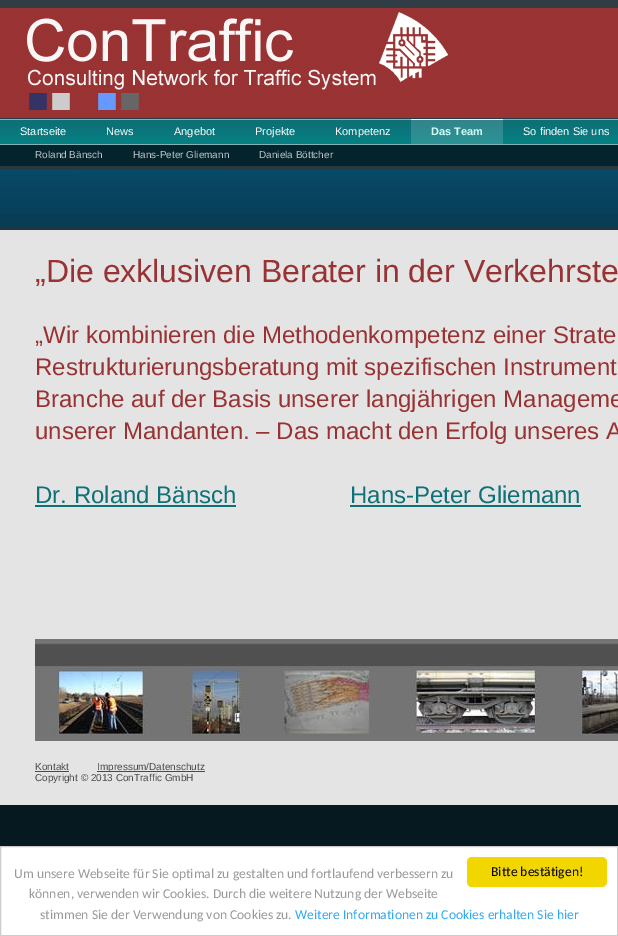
%!PS-Adobe-3.0
%%BoundingBox: 0 0 618 936
%%LanguageLevel: 3
%%Pages: 1
%%EndComments
%%BeginProlog
/m { moveto } bind def
/l { lineto } bind def
/h { closepath } bind def
/f { fill } bind def
/S { stroke } bind def
/q { gsave } bind def
/Q { grestore } bind def
/fn { [ exch dup neg 0 0 3 -1 roll 0 0 ] selectfont } def
/tx { moveto show } def
/bx { rectfill } def
/rr { 5 dict begin { /r /h /w /y /x } { exch def } forall
  x r add y moveto x w add y 2 copy h add r arct x w add y h add x 1 index r arct
  x y h add x y r arct x y 2 copy exch w add exch r arct closepath end } def
/im { 5 dict begin { /h /w /y /x /name } { exch def } forall
  gsave x y translate w h scale
  w h 8 [w 0 0 h 0 0] name (r) file false 3 colorimage grestore end } def
%%EndProlog
%%BeginSetup
<< /PageSize [618 936] >> setpagedevice
%%EndSetup
%%Page: 1 1
0 936 translate 1 -1 scale
4 setmiterlimit
0.024 0.098 0.125 setrgbcolor
0 0 618 936 bx
(image0.raw) 0 0 618 8 im
0.894 setgray
0 230 618 575 bx
(image1.raw) 0 118 618 112 im
(image2.raw) 0 8 618 110 im
(image3.raw) 0 119 618 26 im
/LiberationSans-Regular 11 fn
0.992 1 1 setrgbcolor
(Startseite) 20 135 tx
(News) 106 135 tx
(Angebot) 174 135 tx
(Projekte) 255 135 tx
(Kompetenz) 335 135 tx
(image4.raw) 411 119 92 25 im
/LiberationSans-Bold 11 fn
0.827 1 0.976 setrgbcolor
(Das Team) 431 135 tx
/LiberationSans-Regular 11 fn
0.992 1 1 setrgbcolor
(So finden Sie uns) 523 135 tx
0.012 0.141 0.176 setrgbcolor
0 145 618 21 bx
/LiberationSans-Regular 10 fn
0.773 setgray
(Roland Bänsch) 35 158 tx
(Hans-Peter Gliemann) 133 158 tx
(Daniela Böttcher) 259 158 tx
0.035 0.239 0.337 setrgbcolor
0 214 618 13 bx
(image5.raw) 0 169 618 45 im
/LiberationSans-Regular 32 fn
0.6 0.2 0.2 setrgbcolor
(„Die exklusiven Berater in der Verkehrste) 35 282 tx
/LiberationSans-Regular 24 fn
(„Wir kombinieren die Methodenkompetenz einer Strate) 35 343 tx
(Restrukturierungsberatung mit spezifischen Instrument) 35 375 tx
(Branche auf der Basis unserer langjährigen Manageme) 35 407 tx
(unserer Mandanten. – Das macht den Erfolg unseres A) 35 439 tx
0.051 0.443 0.467 setrgbcolor
(Dr. Roland Bänsch) 35 503 tx
35 505 201 2 bx
(Hans-Peter Gliemann) 350 503 tx
350 505 231 2 bx
(image6.raw) 35 639 583 102 im
/LiberationSans-Regular 10 fn
0.29 setgray
(Kontakt) 35 770 tx
35 771 34 1 bx
97 771 108 1 bx
(Impressum/Datenschutz) 97 770 tx
(Copyright © 2013 ConTraffic GmbH) 35 781 tx
1 setgray
0.5 846.5 m 617.5 846.5 l 617.5 935.5 l 0.5 935.5 l h q f Q
0.8 setgray
S
0.945 0.839 0 setrgbcolor
467 857 140 30 5 rr f
/Carlito-Regular 13.6 fn
0 setgray
(Bitte bestätigen!) 491 876 tx
0.6 setgray
(Um unsere Webseite für Sie optimal zu gestalten und fortlaufend verbessern zu) 14 878 tx
(können, verwenden wir Cookies. Durch die weitere Nutzung der Webseite) 29 898 tx
(stimmen Sie der Verwendung von Cookies zu.) 40 919 tx
0.192 0.659 0.941 setrgbcolor
(Weitere Informationen zu Cookies erhalten Sie hier) 295 919 tx
showpage
%%EOF
